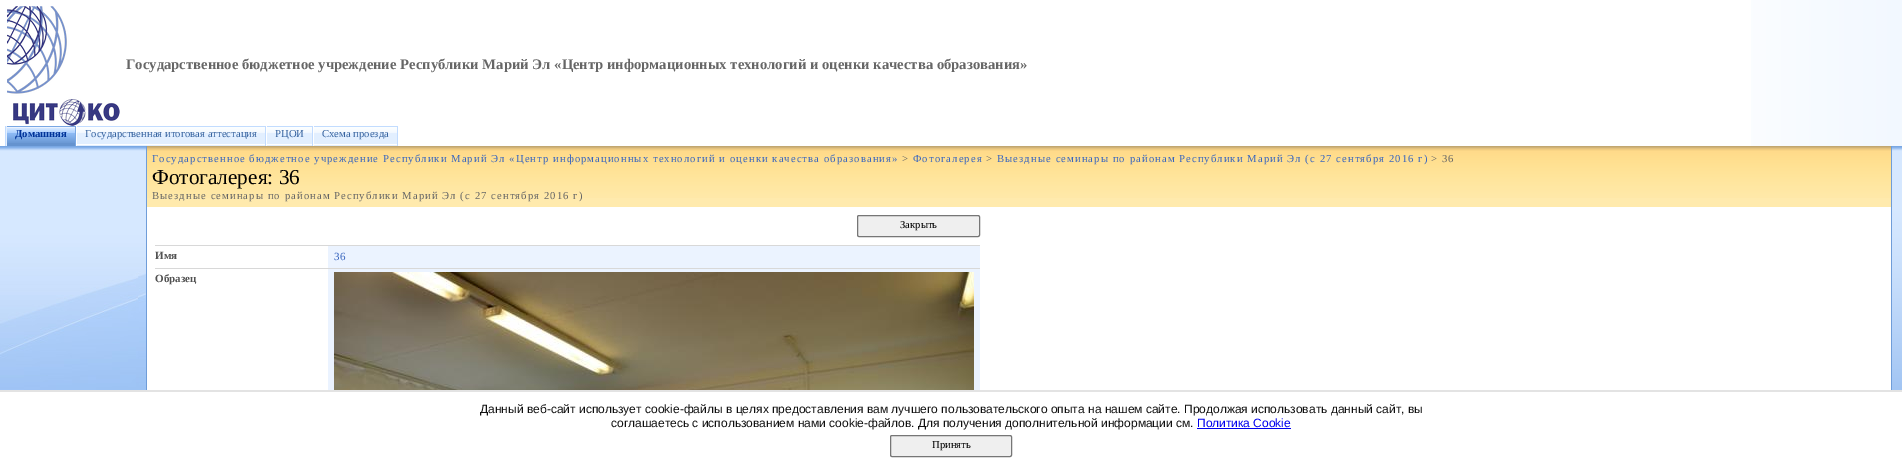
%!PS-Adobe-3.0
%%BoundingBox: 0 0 1902 467
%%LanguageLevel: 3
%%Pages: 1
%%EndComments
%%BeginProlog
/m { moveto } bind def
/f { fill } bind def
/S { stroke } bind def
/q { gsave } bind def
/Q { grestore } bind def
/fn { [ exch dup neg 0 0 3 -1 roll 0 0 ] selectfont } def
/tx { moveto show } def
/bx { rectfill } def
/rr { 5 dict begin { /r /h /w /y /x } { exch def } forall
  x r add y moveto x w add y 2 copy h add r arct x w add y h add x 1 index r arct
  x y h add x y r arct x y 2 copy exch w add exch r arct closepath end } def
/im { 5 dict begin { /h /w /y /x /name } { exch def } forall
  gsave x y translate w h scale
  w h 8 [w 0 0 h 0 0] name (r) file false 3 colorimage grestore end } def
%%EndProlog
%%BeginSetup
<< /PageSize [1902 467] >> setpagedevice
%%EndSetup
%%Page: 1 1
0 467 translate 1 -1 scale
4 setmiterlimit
1 setgray
0 0 1902 467 bx
(image0.raw) 1751 0 151 126 im
(image1.raw) 7 6 113 120 im
/LiberationSerif-Bold 14.67 fn
0.4 setgray
(Государственное бюджетное учреждение Республики Марий Эл «Центр информационных технологий и оценки качества образования») 126 69 tx
(image2.raw) 1751 126 151 20 im
0.761 0.863 1 setrgbcolor
5 126 1 20 bx
0.475 0.655 0.89 setrgbcolor
6 126 70 1 bx
75 126 1 20 bx
0.89 0.937 1 setrgbcolor
6 126 1 20 bx
0.396 0.576 0.812 setrgbcolor
7 143 68 3 bx
(image3.raw) 7 127 68 16 im
/LiberationSerif-Bold 10.67 fn
0 0.2 0.6 setrgbcolor
(Домашняя) 15 137 tx
0.761 0.863 1 setrgbcolor
76 126 322 1 bx
265 126 1 20 bx
1 setgray
76 126 1 1 bx
0.886 0.937 1 setrgbcolor
77 145 188 1 bx
(image4.raw) 77 127 188 18 im
/LiberationSerif-Regular 10.67 fn
0.216 0.392 0.627 setrgbcolor
(Государственная итоговая аттестация) 85 137 tx
0.761 0.863 1 setrgbcolor
312 126 1 20 bx
1 setgray
266 126 1 1 bx
0.886 0.937 1 setrgbcolor
267 145 45 1 bx
(image5.raw) 267 127 45 18 im
0.216 0.392 0.627 setrgbcolor
(РЦОИ) 275 137 tx
0.761 0.863 1 setrgbcolor
397 126 1 20 bx
1 setgray
313 126 1 1 bx
0.886 0.937 1 setrgbcolor
314 145 83 1 bx
(image6.raw) 314 127 83 18 im
0.216 0.392 0.627 setrgbcolor
(Схема проезда) 322 137 tx
0.839 0.91 1 setrgbcolor
0 151 146 56 bx
(image7.raw) 0 146 138 5 im
(image8.raw) 138 146 8 5 im
0.435 0.616 0.851 setrgbcolor
146 146 1 244 bx
1 0.918 0.678 setrgbcolor
147 198 1744 9 bx
(image9.raw) 147 146 1744 52 im
0.224 0.4 0.749 setrgbcolor
152 162 m 1.07 0 (Государственное бюджетное учреждение Республики Марий Эл «Центр информационных технологий и оценки качества образования») ashow
0.4 setgray
902 162 m 1.07 0 (>) ashow
0.224 0.4 0.749 setrgbcolor
913 162 m 1.07 0 (Фотогалерея) ashow
0.4 setgray
986 162 m 1.07 0 (>) ashow
0.224 0.4 0.749 setrgbcolor
997 162 m 1.07 0 (Выездные семинары по районам Республики Марий Эл \(с 27 сентября 2016 г\)) ashow
0.4 setgray
1431 162 m 1.07 0 (> 36) ashow
/LiberationSerif-Regular 21.25 fn
0 setgray
(Фотогалерея: 36) 152 184 tx
/LiberationSerif-Regular 10.67 fn
0.4 setgray
152 199 m 1.07 0 (Выездные семинары по районам Республики Марий Эл \(с 27 сентября 2016 г\)) ashow
0.839 0.91 1 setrgbcolor
1892 151 10 56 bx
(image10.raw) 1892 146 10 5 im
0.435 0.616 0.851 setrgbcolor
1891 146 1 244 bx
(image11.raw) 0 207 138 183 im
(image12.raw) 138 207 8 183 im
0.937 setgray
857.5 215.5 122 21 1.5 rr q f Q
0.463 setgray
S
0 setgray
(Закрыть) 900 228 tx
0.847 setgray
155 245 825 1 bx
/LiberationSerif-Bold 11 fn
0.322 setgray
(Имя) 155 259 tx
0.922 0.953 1 setrgbcolor
328 246 652 22 bx
/LiberationSerif-Regular 11 fn
0.224 0.4 0.749 setrgbcolor
(36) 334 260 tx
0.847 setgray
155 268 825 1 bx
/LiberationSerif-Bold 11 fn
0.322 setgray
(Образец) 155 282 tx
0.922 0.953 1 setrgbcolor
328 269 652 121 bx
(image13.raw) 334 272 640 118 im
(image14.raw) 1892 207 10 183 im
0.89 setgray
0 390 1902 2 bx
/LiberationSans-Regular 12 fn
0.067 setgray
(Данный веб-сайт использует cookie-файлы в целях предоставления вам лучшего пользовательского опыта на нашем сайте. Продолжая использовать данный сайт, вы) 480 413 tx
(соглашаетесь с использованием нами cookie-файлов. Для получения дополнительной информации см.) 611 427 tx
0 0 0.933 setrgbcolor
(Политика Cookie) 1197 427 tx
1197 428 94 1 bx
0.937 setgray
890.5 435.5 121 21 1.5 rr q f Q
0.463 setgray
S
/LiberationSerif-Regular 10.67 fn
0 setgray
(Принять) 932 448 tx
showpage
%%EOF
